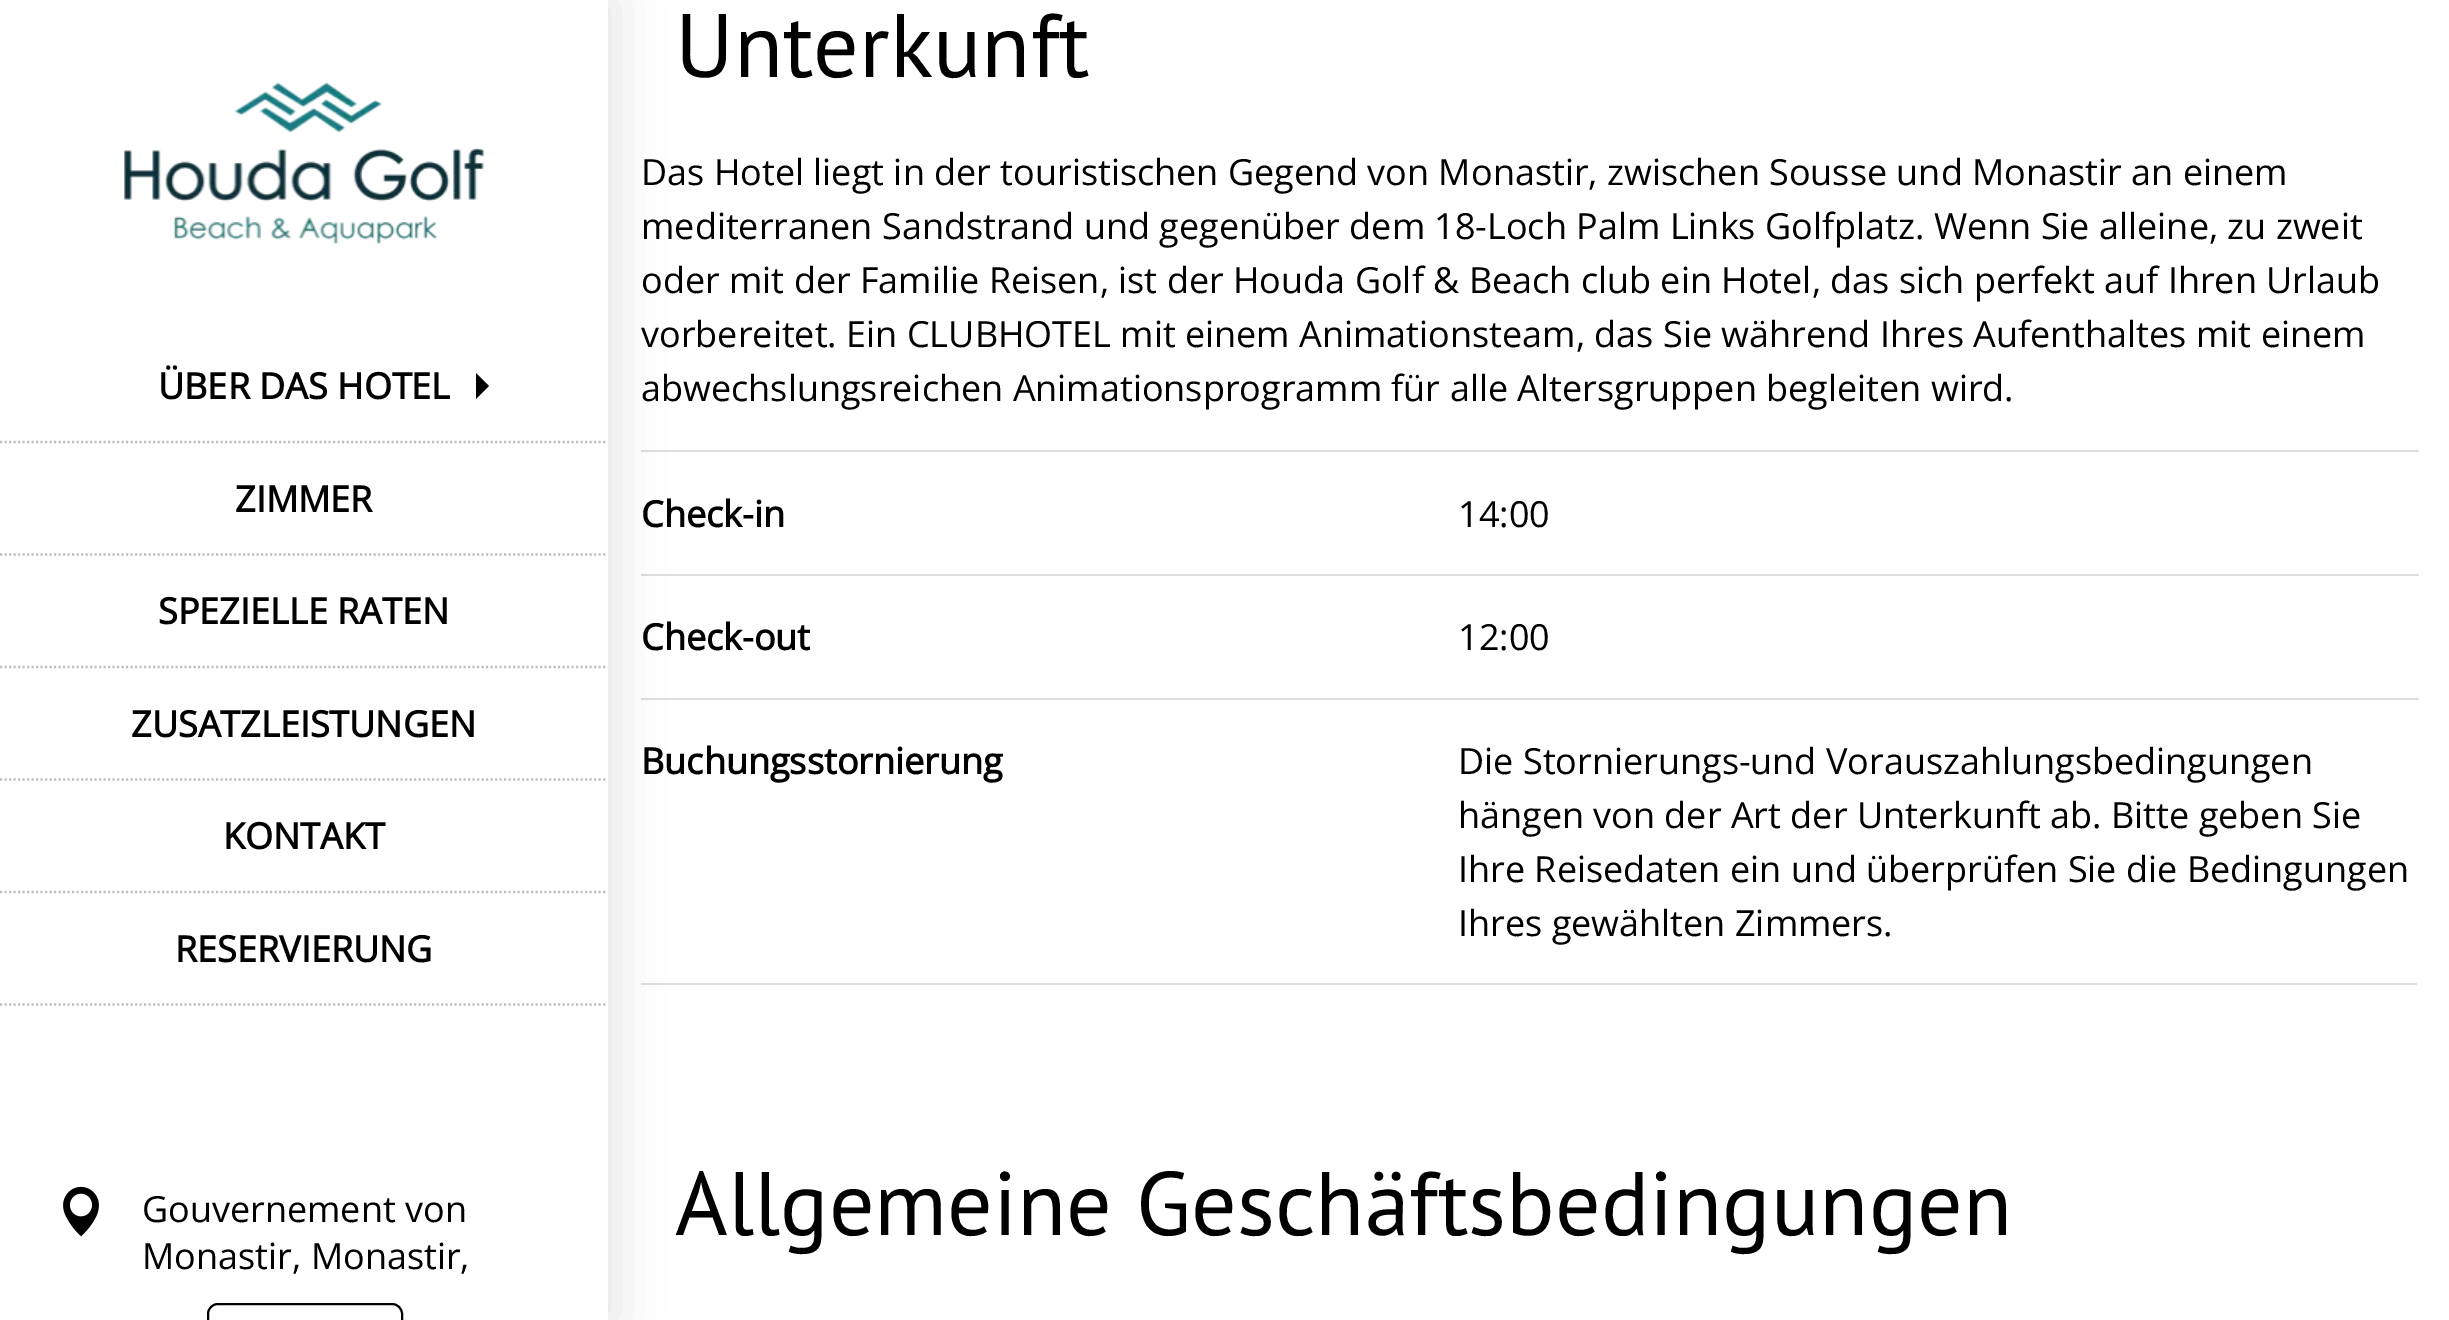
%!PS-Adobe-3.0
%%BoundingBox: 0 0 2449 1320
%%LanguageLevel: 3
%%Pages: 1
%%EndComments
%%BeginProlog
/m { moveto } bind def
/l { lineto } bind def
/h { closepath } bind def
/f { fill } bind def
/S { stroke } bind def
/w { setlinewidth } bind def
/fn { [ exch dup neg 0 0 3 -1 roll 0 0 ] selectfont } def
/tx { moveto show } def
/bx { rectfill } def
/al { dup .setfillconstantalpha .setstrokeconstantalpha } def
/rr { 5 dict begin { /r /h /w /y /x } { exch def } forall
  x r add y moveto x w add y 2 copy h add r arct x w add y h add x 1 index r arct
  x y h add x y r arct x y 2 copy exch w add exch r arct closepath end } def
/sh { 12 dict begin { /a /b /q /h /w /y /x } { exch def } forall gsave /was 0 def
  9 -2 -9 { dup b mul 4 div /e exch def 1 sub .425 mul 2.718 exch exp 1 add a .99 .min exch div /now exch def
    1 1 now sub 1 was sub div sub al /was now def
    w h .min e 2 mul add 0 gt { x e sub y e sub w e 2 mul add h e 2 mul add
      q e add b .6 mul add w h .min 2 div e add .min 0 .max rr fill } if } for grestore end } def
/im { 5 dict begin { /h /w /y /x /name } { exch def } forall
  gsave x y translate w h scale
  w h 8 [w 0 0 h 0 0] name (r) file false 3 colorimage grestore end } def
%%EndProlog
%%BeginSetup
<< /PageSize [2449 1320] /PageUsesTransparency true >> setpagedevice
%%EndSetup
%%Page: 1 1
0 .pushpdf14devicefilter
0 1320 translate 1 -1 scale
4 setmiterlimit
1 setgray
0 0 2449 1320 bx
0.871 setgray
641 983 1776 2 bx
641 450 1778 2 bx
641 574 1778 2 bx
641 698 1778 2 bx
0 setgray
9 0 608 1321 0 22.5 0.1 sh
1 setgray
0 0 608 1320 bx
(image0.raw) 124 82 361 162 im
0.749 setgray
2.2 w
[2.25 2.25] 0 setdash
0 442 m 607.5 442 l S
/OpenSans-Bold 36 fn
0 setgray
(ÜBER DAS HOTEL) 158 399 tx
0.004 setgray
489 386 m 476 399 l 476 373 l h f
0.749 setgray
0 554.5 m 607.5 554.5 l S
0 setgray
(ZIMMER) 235 512 tx
0.749 setgray
0 667 m 607.5 667 l S
0 setgray
(SPEZIELLE RATEN) 158 624 tx
0.749 setgray
0 779.5 m 607.5 779.5 l S
0 setgray
(ZUSATZLEISTUNGEN) 131 737 tx
0.749 setgray
0 892 m 607.5 892 l S
0 setgray
(KONTAKT) 223 849 tx
0.749 setgray
0 1004.5 m 607.5 1004.5 l S
0 setgray
(RESERVIERUNG) 175 962 tx
(image1.raw) 63 1186 36 51 im
/OpenSans-Regular 36 fn
(Gouvernement von) 142 1222 tx
(Monastir, Monastir,) 142 1269 tx
0.004 setgray
2 w
[] 0 setdash
208 1304 194 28 10 rr S
/PTSans-Regular 90 fn
0 setgray
(Unterkunft) 675 77 tx
/OpenSans-Regular 36 fn
(Das Hotel liegt in der touristischen Gegend von Monastir, zwischen Sousse und Monastir an einem) 641 185 tx
(mediterranen Sandstrand und gegenüber dem 18-Loch Palm Links Golfplatz. Wenn Sie alleine, zu zweit) 641 239 tx
(oder mit der Familie Reisen, ist der Houda Golf & Beach club ein Hotel, das sich perfekt auf Ihren Urlaub) 641 293 tx
(vorbereitet. Ein CLUBHOTEL mit einem Animationsteam, das Sie während Ihres Aufenthaltes mit einem) 641 347 tx
(abwechslungsreichen Animationsprogramm für alle Altersgruppen begleiten wird.) 641 401 tx
/OpenSans-Bold 36 fn
(Check-in) 641 527 tx
/OpenSans-Regular 36 fn
(14:00) 1458 527 tx
/OpenSans-Bold 36 fn
(Check-out) 641 650 tx
/OpenSans-Regular 36 fn
(12:00) 1458 650 tx
/OpenSans-Bold 36 fn
(Buchungsstornierung) 641 774 tx
/OpenSans-Regular 36 fn
(Die Stornierungs-und Vorauszahlungsbedingungen) 1458 774 tx
(hängen von der Art der Unterkunft ab. Bitte geben Sie) 1458 828 tx
(Ihre Reisedaten ein und überprüfen Sie die Bedingungen) 1458 882 tx
(Ihres gewählten Zimmers.) 1458 936 tx
/PTSans-Regular 90 fn
(Allgemeine Geschäftsbedingungen) 675 1235 tx
.poppdf14devicefilter showpage
%%EOF
